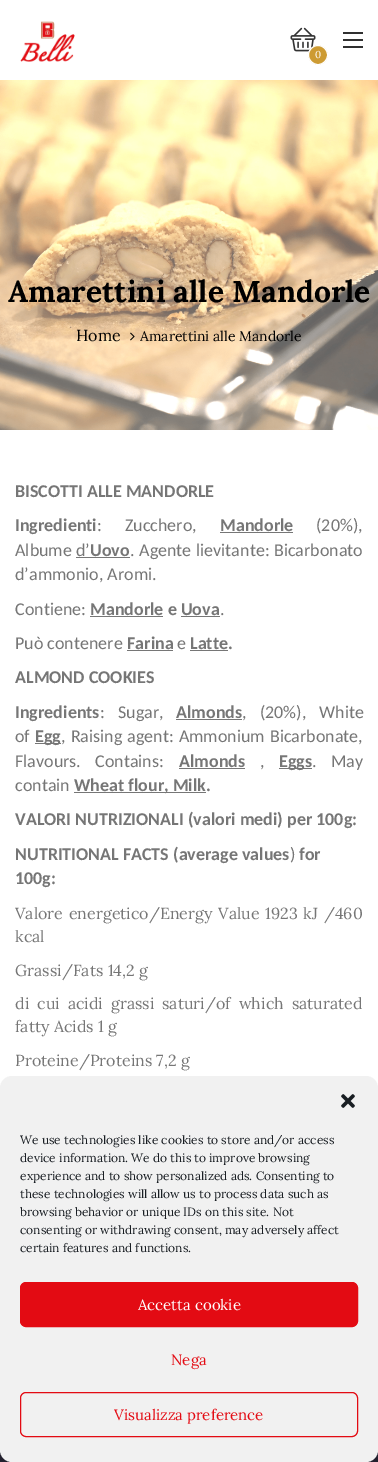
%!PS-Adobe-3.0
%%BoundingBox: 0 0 378 1462
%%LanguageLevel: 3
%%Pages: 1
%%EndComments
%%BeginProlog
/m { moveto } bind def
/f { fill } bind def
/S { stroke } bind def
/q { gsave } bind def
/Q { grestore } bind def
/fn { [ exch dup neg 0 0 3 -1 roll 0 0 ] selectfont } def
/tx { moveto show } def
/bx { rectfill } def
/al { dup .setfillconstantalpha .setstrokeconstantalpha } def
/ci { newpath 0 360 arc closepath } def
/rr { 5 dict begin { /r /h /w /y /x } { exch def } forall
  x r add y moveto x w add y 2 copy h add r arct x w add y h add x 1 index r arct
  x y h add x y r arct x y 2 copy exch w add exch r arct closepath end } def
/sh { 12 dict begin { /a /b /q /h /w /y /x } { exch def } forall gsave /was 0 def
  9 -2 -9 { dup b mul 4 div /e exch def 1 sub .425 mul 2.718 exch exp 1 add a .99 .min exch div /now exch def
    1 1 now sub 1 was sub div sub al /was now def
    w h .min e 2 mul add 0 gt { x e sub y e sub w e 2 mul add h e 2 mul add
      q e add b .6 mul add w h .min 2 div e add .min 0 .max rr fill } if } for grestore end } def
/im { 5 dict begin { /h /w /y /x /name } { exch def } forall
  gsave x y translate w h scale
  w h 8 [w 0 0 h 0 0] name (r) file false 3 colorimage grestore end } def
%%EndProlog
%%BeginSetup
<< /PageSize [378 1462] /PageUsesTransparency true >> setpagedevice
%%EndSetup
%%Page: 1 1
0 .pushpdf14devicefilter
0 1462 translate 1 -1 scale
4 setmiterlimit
1 setgray
0 0 378 1462 bx
(image0.raw) 20 21 55 41 im
0.188 setgray
343 32 20 2 bx
343 39 20 2 bx
343 46 20 2 bx
(image1.raw) 290 27 26 25 im
0.804 0.608 0.2 setrgbcolor
318 55 9.5 ci q f Q
1 setgray
S
/Lora-Regular 10 fn
(0) 315 58 tx
(image2.raw) 0 80 378 350 im
/Lora-Bold 30 fn
0 setgray
(Amarettini alle Mandorle) 8 302 tx
/Lora-Regular 16 fn
(Home) 76 341 tx
(image3.raw) 130 332 5 9 im
/Lora-Regular 14 fn
(Amarettini alle Mandorle) 140 341 tx
/Carlito-Bold 18 fn
0.463 setgray
(BISCOTTI ALLE MANDORLE) 15 497 tx
(Ingredienti) 15 531 tx
/Carlito-Regular 18 fn
97 531 m 19 0 32 (: Zucchero,) widthshow
/Carlito-Bold 18 fn
(Mandorle) 220 531 tx
220 532 73 1 bx
/Carlito-Regular 18 fn
(\(20%\),) 316 531 tx
(Albume) 15 556 tx
(d’) 76 556 tx
/Carlito-Bold 18 fn
(Uovo) 90 556 tx
/Carlito-Regular 18 fn
130 556 m 0.5 0 32 (. Agente lievitante: Bicarbonato) widthshow
76 557 54 1 bx
(d’ammonio, Aromi.) 15 580 tx
(Contiene:) 15 615 tx
/Carlito-Bold 18 fn
(Mandorle e Uova) 90 615 tx
90 616 73 1 bx
/Carlito-Regular 18 fn
(.) 220 615 tx
181 616 39 1 bx
(Può contenere) 15 649 tx
/Carlito-Bold 18 fn
(Farina) 127 649 tx
127 650 46 1 bx
/Carlito-Regular 18 fn
(e) 177 649 tx
/Carlito-Bold 18 fn
(Latte.) 190 649 tx
190 650 38 1 bx
(ALMOND COOKIES) 15 683 tx
(Ingredients) 15 718 tx
/Carlito-Regular 18 fn
100 718 m 9 0 32 (: Sugar,) widthshow
/Carlito-Bold 18 fn
(Almonds) 176 718 tx
176 719 66 1 bx
/Carlito-Regular 18 fn
242 718 m 9 0 32 (, \(20%\), White) widthshow
(of) 15 742 tx
35 743 26 1 bx
/Carlito-Bold 18 fn
(Egg) 35 742 tx
/Carlito-Regular 18 fn
61 742 m 1 0 32 (, Raising agent: Ammonium Bicarbonate,) widthshow
15 767 m 10 0 32 (Flavours. Contains:) widthshow
/Carlito-Bold 18 fn
(Almonds) 179 767 tx
179 768 66 1 bx
/Carlito-Regular 18 fn
(,) 260 767 tx
279 768 33 1 bx
/Carlito-Bold 18 fn
(Eggs) 279 767 tx
/Carlito-Regular 18 fn
312 767 m 10 0 32 (. May) widthshow
(contain) 15 791 tx
74 792 132 1 bx
/Carlito-Bold 18 fn
(Wheat flour, Milk.) 74 791 tx
(VALORI NUTRIZIONALI \(valori medi\) per 100g:) 15 825 tx
(NUTRITIONAL FACTS \(average values) 15 860 tx
/Carlito-Regular 18 fn
(\)) 290 860 tx
/Carlito-Bold 18 fn
(for) 299 860 tx
(100g:) 15 884 tx
/Lora-Regular 16 fn
15 919 m 1.5 0 32 (Valore energetico/Energy Value 1923 kJ /460) widthshow
(kcal) 15 942 tx
(Grassi/Fats 14,2 g) 15 976 tx
15 1009 m 3.75 0 32 (di cui acidi grassi saturi/of which saturated) widthshow
(fatty Acids 1 g) 15 1032 tx
(Proteine/Proteins 7,2 g) 15 1066 tx
0.133 0.125 0.18 setrgbcolor
0 1450 378 12 bx
0.502 setgray
308 1388 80 60 2 2.5 1 sh
0.945 setgray
0 1076 378 386 12 rr f
(image4.raw) 341 1094 14 14 im
/Lora-Regular 12 fn
0.098 0.118 0.137 setrgbcolor
(We use technologies like cookies to store and/or access) 20 1144 tx
(device information. We do this to improve browsing) 20 1162 tx
(experience and to show personalized ads. Consenting to) 20 1180 tx
(these technologies will allow us to process data such as) 20 1198 tx
(browsing behavior or unique IDs on this site. Not) 20 1216 tx
(consenting or withdrawing consent, may adversely affect) 20 1234 tx
(certain features and functions.) 20 1252 tx
0.89 0.043 0.075 setrgbcolor
20.5 1282.5 337 44 5.5 rr q f Q
S
/Lora-Regular 15 fn
1 setgray
(Accetta cookie) 138 1310 tx
0.89 0.043 0.075 setrgbcolor
(Nega) 171 1365 tx
20.5 1392.5 337 44 5.5 rr S
(Visualizza preference) 114 1420 tx
.poppdf14devicefilter showpage
%%EOF
